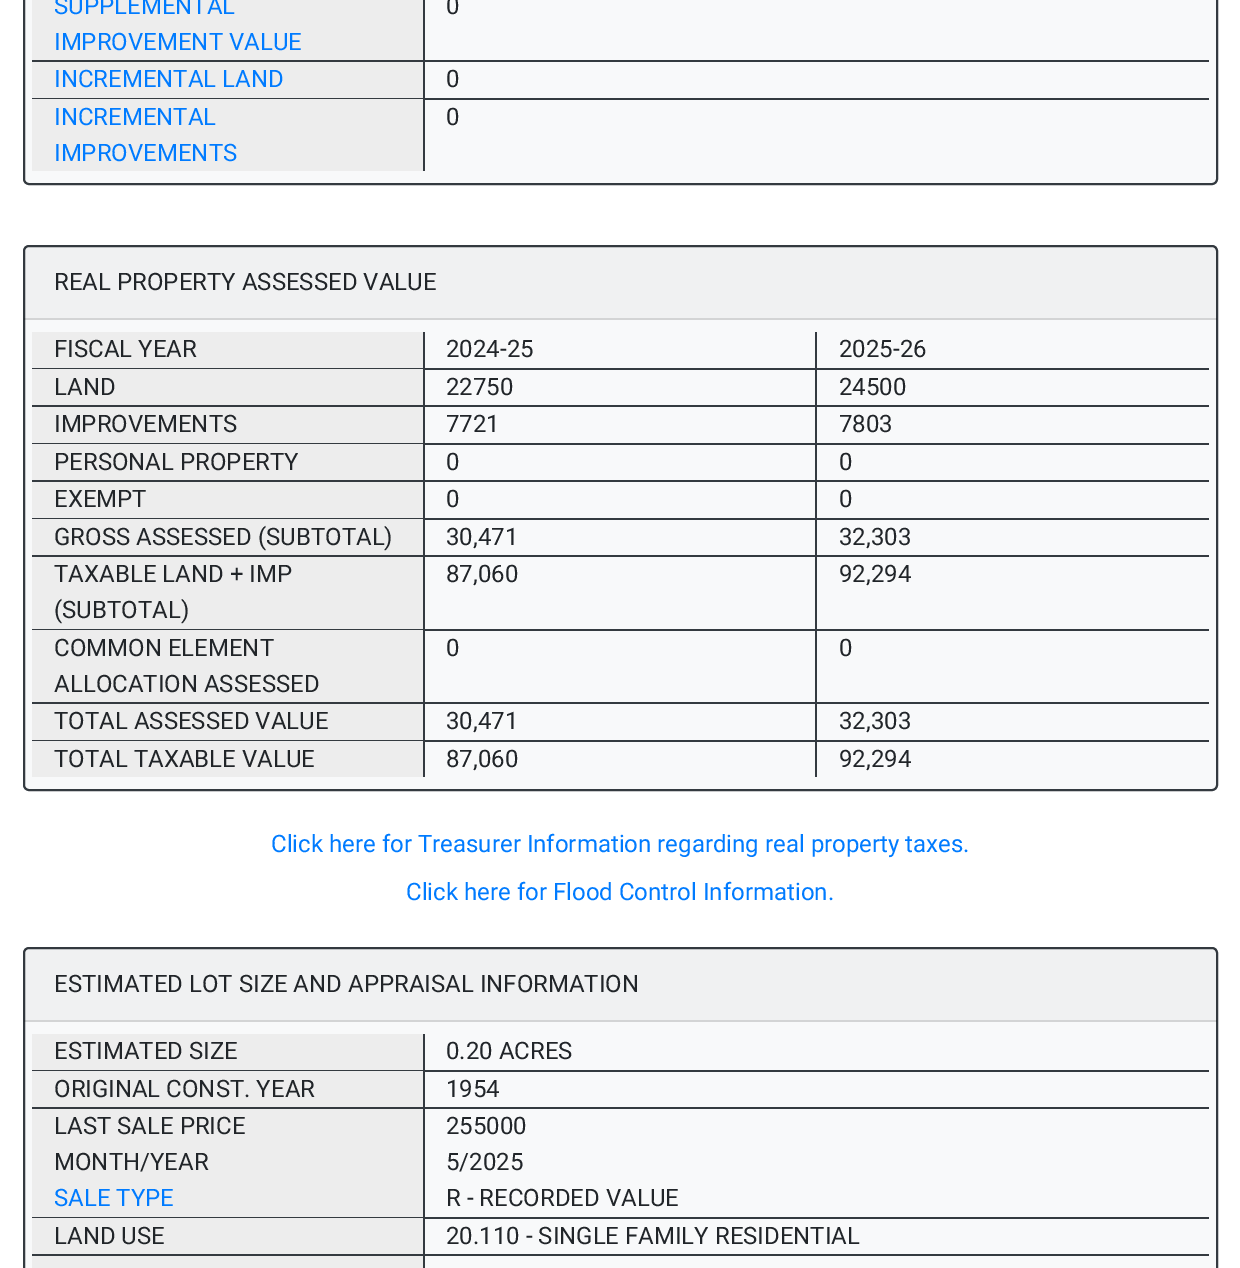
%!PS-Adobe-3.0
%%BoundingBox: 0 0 1240 1268
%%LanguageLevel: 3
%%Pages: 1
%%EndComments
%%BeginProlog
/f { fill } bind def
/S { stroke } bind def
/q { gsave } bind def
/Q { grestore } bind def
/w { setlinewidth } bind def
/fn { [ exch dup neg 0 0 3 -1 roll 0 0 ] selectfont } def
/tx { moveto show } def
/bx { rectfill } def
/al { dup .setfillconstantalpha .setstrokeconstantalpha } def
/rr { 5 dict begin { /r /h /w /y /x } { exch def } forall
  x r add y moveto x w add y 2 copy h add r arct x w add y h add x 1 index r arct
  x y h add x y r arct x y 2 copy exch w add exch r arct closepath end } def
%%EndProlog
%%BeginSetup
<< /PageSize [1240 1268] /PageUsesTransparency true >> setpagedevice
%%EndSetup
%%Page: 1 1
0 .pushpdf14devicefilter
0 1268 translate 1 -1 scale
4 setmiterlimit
1 setgray
0 0 1240 1268 bx
0.973 0.976 0.98 setrgbcolor
24 -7 1193 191 5 rr q f Q
0.204 0.227 0.251 setrgbcolor
2 w
S
32 60 1177 2 bx
0.929 setgray
32 0 391 60 bx
0.204 0.227 0.251 setrgbcolor
423 0 2 60 bx
/Roboto-Regular 24 fn
0 0.482 1 setrgbcolor
(SUPPLEMENTAL) 54 14 tx
(IMPROVEMENT VALUE) 54 50 tx
0.129 0.145 0.161 setrgbcolor
(0) 446 14 tx
0.204 0.227 0.251 setrgbcolor
32 98 1177 2 bx
0.929 setgray
32 62 391 36 bx
0.204 0.227 0.251 setrgbcolor
423 62 2 36 bx
0 0.482 1 setrgbcolor
(INCREMENTAL LAND) 54 87 tx
0.129 0.145 0.161 setrgbcolor
(0) 446 87 tx
0.929 setgray
32 99 391 72 bx
0.204 0.227 0.251 setrgbcolor
423 99 2 72 bx
0 0.482 1 setrgbcolor
(INCREMENTAL) 54 125 tx
(IMPROVEMENTS) 54 161 tx
0.129 0.145 0.161 setrgbcolor
(0) 446 125 tx
0.973 0.976 0.98 setrgbcolor
24 246 1193 544 5 rr q f Q
0.204 0.227 0.251 setrgbcolor
S
0.03 al
0 setgray
24 246 1193 74 bx
0.12 al
24 318 1193 2 bx
1 al
0.129 0.145 0.161 setrgbcolor
(REAL PROPERTY ASSESSED VALUE) 54 290 tx
0.204 0.227 0.251 setrgbcolor
32 368 1177 2 bx
0.929 setgray
32 332 391 36 bx
0.204 0.227 0.251 setrgbcolor
423 332 2 36 bx
0.129 0.145 0.161 setrgbcolor
(FISCAL YEAR) 54 357 tx
0.204 0.227 0.251 setrgbcolor
815 332 2 36 bx
0.129 0.145 0.161 setrgbcolor
(2024-25) 446 357 tx
(2025-26) 839 357 tx
0.204 0.227 0.251 setrgbcolor
32 405 1177 2 bx
0.929 setgray
32 369 391 36 bx
0.204 0.227 0.251 setrgbcolor
423 369 2 36 bx
0.129 0.145 0.161 setrgbcolor
(LAND) 54 395 tx
0.204 0.227 0.251 setrgbcolor
815 369 2 36 bx
0.129 0.145 0.161 setrgbcolor
(22750) 446 395 tx
(24500) 839 395 tx
0.204 0.227 0.251 setrgbcolor
32 443 1177 2 bx
0.929 setgray
32 407 391 36 bx
0.204 0.227 0.251 setrgbcolor
423 407 2 36 bx
0.129 0.145 0.161 setrgbcolor
(IMPROVEMENTS) 54 432 tx
0.204 0.227 0.251 setrgbcolor
815 407 2 36 bx
0.129 0.145 0.161 setrgbcolor
(7721) 446 432 tx
(7803) 839 432 tx
0.204 0.227 0.251 setrgbcolor
32 480 1177 2 bx
0.929 setgray
32 444 391 36 bx
0.204 0.227 0.251 setrgbcolor
423 444 2 36 bx
0.129 0.145 0.161 setrgbcolor
(PERSONAL PROPERTY) 54 470 tx
0.204 0.227 0.251 setrgbcolor
815 444 2 36 bx
0.129 0.145 0.161 setrgbcolor
(0) 446 470 tx
(0) 839 470 tx
0.204 0.227 0.251 setrgbcolor
32 518 1177 2 bx
0.929 setgray
32 482 391 36 bx
0.204 0.227 0.251 setrgbcolor
423 482 2 36 bx
0.129 0.145 0.161 setrgbcolor
(EXEMPT) 54 507 tx
0.204 0.227 0.251 setrgbcolor
815 482 2 36 bx
0.129 0.145 0.161 setrgbcolor
(0) 446 507 tx
(0) 839 507 tx
0.204 0.227 0.251 setrgbcolor
32 555 1177 2 bx
0.929 setgray
32 519 391 36 bx
0.204 0.227 0.251 setrgbcolor
423 519 2 36 bx
0.129 0.145 0.161 setrgbcolor
(GROSS ASSESSED \(SUBTOTAL\)) 54 545 tx
0.204 0.227 0.251 setrgbcolor
815 519 2 36 bx
0.129 0.145 0.161 setrgbcolor
(30,471) 446 545 tx
(32,303) 839 545 tx
0.204 0.227 0.251 setrgbcolor
32 629 1177 2 bx
0.929 setgray
32 557 391 72 bx
0.204 0.227 0.251 setrgbcolor
423 557 2 72 bx
0.129 0.145 0.161 setrgbcolor
(TAXABLE LAND + IMP) 54 582 tx
(\(SUBTOTAL\)) 54 618 tx
0.204 0.227 0.251 setrgbcolor
815 557 2 72 bx
0.129 0.145 0.161 setrgbcolor
(87,060) 446 582 tx
(92,294) 839 582 tx
0.204 0.227 0.251 setrgbcolor
32 702 1177 2 bx
0.929 setgray
32 630 391 72 bx
0.204 0.227 0.251 setrgbcolor
423 630 2 72 bx
0.129 0.145 0.161 setrgbcolor
(COMMON ELEMENT) 54 656 tx
(ALLOCATION ASSESSED) 54 692 tx
0.204 0.227 0.251 setrgbcolor
815 630 2 72 bx
0.129 0.145 0.161 setrgbcolor
(0) 446 656 tx
(0) 839 656 tx
0.204 0.227 0.251 setrgbcolor
32 740 1177 2 bx
0.929 setgray
32 704 391 36 bx
0.204 0.227 0.251 setrgbcolor
423 704 2 36 bx
0.129 0.145 0.161 setrgbcolor
(TOTAL ASSESSED VALUE) 54 729 tx
0.204 0.227 0.251 setrgbcolor
815 704 2 36 bx
0.129 0.145 0.161 setrgbcolor
(30,471) 446 729 tx
(32,303) 839 729 tx
0.929 setgray
32 741 391 36 bx
0.204 0.227 0.251 setrgbcolor
423 741 2 36 bx
0.129 0.145 0.161 setrgbcolor
(TOTAL TAXABLE VALUE) 54 767 tx
0.204 0.227 0.251 setrgbcolor
815 741 2 36 bx
0.129 0.145 0.161 setrgbcolor
(87,060) 446 767 tx
(92,294) 839 767 tx
0 0.482 1 setrgbcolor
(Click here for Treasurer Information regarding real property taxes.) 271 852 tx
(Click here for Flood Control Information.) 406 900 tx
0.973 0.976 0.98 setrgbcolor
24 948 1193 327 5 rr q f Q
0.204 0.227 0.251 setrgbcolor
S
0.03 al
0 setgray
24 948 1193 74 bx
0.12 al
24 1020 1193 2 bx
1 al
0.129 0.145 0.161 setrgbcolor
(ESTIMATED LOT SIZE AND APPRAISAL INFORMATION) 54 992 tx
0.204 0.227 0.251 setrgbcolor
32 1070 1177 2 bx
0.929 setgray
32 1034 391 36 bx
0.204 0.227 0.251 setrgbcolor
423 1034 2 36 bx
0.129 0.145 0.161 setrgbcolor
(ESTIMATED SIZE) 54 1059 tx
(0.20 ACRES) 446 1059 tx
0.204 0.227 0.251 setrgbcolor
32 1107 1177 2 bx
0.929 setgray
32 1071 391 36 bx
0.204 0.227 0.251 setrgbcolor
423 1071 2 36 bx
0.129 0.145 0.161 setrgbcolor
(ORIGINAL CONST. YEAR) 54 1097 tx
(1954) 446 1097 tx
0.204 0.227 0.251 setrgbcolor
32 1217 1177 2 bx
0.929 setgray
32 1109 391 108 bx
0.204 0.227 0.251 setrgbcolor
423 1109 2 108 bx
0.129 0.145 0.161 setrgbcolor
(LAST SALE PRICE) 54 1134 tx
(MONTH/YEAR) 54 1170 tx
0 0.482 1 setrgbcolor
(SALE TYPE) 54 1206 tx
0.129 0.145 0.161 setrgbcolor
(255000) 446 1134 tx
(5/2025) 446 1170 tx
(R - RECORDED VALUE) 446 1206 tx
0.204 0.227 0.251 setrgbcolor
32 1254 1177 2 bx
0.929 setgray
32 1218 391 36 bx
0.204 0.227 0.251 setrgbcolor
423 1218 2 36 bx
0.129 0.145 0.161 setrgbcolor
(LAND USE) 54 1244 tx
(20.110 - SINGLE FAMILY RESIDENTIAL) 446 1244 tx
0.929 setgray
32 1256 391 12 bx
0.204 0.227 0.251 setrgbcolor
423 1256 2 12 bx
.poppdf14devicefilter showpage
%%EOF
